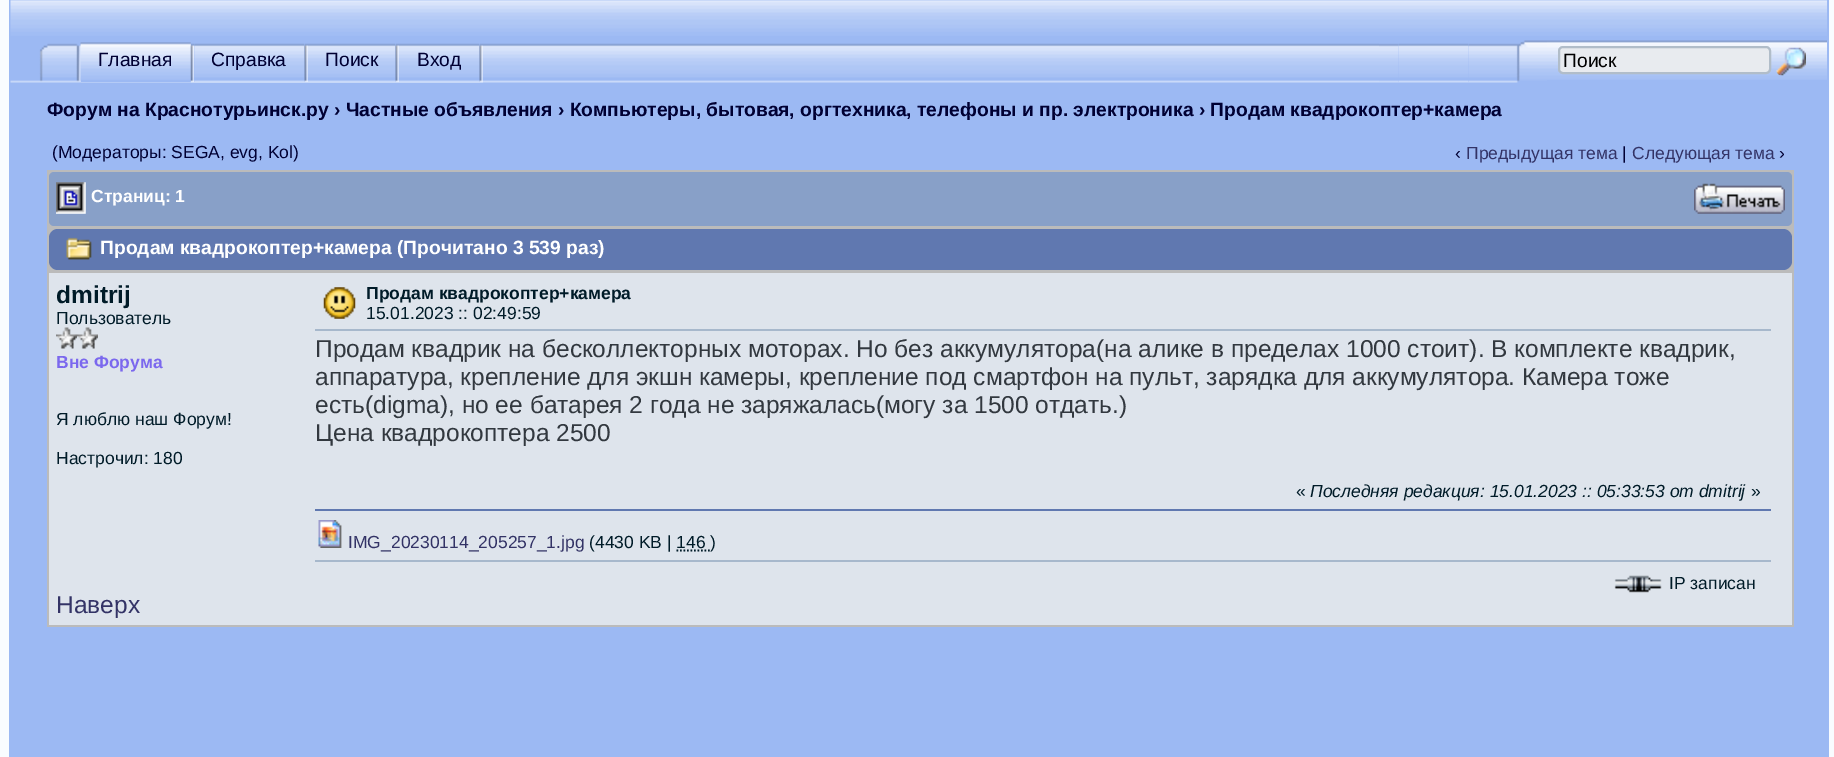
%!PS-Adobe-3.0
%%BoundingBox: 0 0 1834 757
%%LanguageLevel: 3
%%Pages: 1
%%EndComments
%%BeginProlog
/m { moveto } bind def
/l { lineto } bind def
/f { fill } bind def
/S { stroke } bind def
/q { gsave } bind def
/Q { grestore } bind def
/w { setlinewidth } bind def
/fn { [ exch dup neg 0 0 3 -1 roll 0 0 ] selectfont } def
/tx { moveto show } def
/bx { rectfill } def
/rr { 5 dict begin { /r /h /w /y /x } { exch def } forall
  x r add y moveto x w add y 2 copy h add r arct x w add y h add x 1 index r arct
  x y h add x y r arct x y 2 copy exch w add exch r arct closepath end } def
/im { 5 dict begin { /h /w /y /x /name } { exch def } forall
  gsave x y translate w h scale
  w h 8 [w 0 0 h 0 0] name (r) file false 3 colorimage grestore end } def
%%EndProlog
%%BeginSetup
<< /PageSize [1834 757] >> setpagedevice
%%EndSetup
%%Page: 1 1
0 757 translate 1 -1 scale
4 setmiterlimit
0.976 0.988 1 setrgbcolor
0 0 1834 757 bx
0.612 0.725 0.953 setrgbcolor
9 0 1820 757 bx
(image0.raw) 10 0 1817 36 im
(image1.raw) 10 43 71 40 im
(image2.raw) 80 43 1299 40 im
81 43 110 39 bx
(image3.raw) 80 42 111 38 im
/LiberationSans-Regular 19.25 fn
0 0 0.2 setrgbcolor
(Главная) 98 66 tx
(image4.raw) 190 45 5 38 im
0.612 0.725 0.953 setrgbcolor
194 43 111 39 bx
(image5.raw) 194 43 111 40 im
0 0 0.2 setrgbcolor
(Справка) 211 66 tx
(image6.raw) 304 45 4 38 im
0.612 0.725 0.953 setrgbcolor
308 43 88 39 bx
(image7.raw) 308 43 88 40 im
0 0 0.2 setrgbcolor
(Поиск) 325 66 tx
(image6.raw) 395 45 4 38 im
0.612 0.725 0.953 setrgbcolor
399 43 81 39 bx
(image8.raw) 399 43 81 40 im
0 0 0.2 setrgbcolor
(Вход) 417 66 tx
(image6.raw) 479 45 4 38 im
(image9.raw) 1379 43 20 40 im
0.612 0.725 0.953 setrgbcolor
1398 44 1 38 bx
(image10.raw) 1398 43 71 40 im
1468 44 1 38 bx
(image11.raw) 1468 40 79 43 im
(image12.raw) 1547 40 280 40 im
0.91 0.922 0.937 setrgbcolor
1559 47 211 26 4 rr q f Q
0.694 0.741 0.788 setrgbcolor
2 w
S
0 setgray
(Поиск) 1563 67 tx
(image13.raw) 1776 47 30 29 im
/LiberationSans-Bold 19.25 fn
0 0 0.2 setrgbcolor
(Форум на Краснотурьинск.ру › Частные объявления › Компьютеры, бытовая, оргтехника, телефоны и пр. электроника › Продам квадрокоптер+камера) 47 116 tx
/LiberationSans-Regular 17.5 fn
(\(Модераторы: SEGА, evg, Kol\)) 52 158 tx
(‹) 1455 159 tx
0.2 0.2 0.4 setrgbcolor
(Предыдущая тема) 1466 159 tx
0 0 0.2 setrgbcolor
(|) 1622 159 tx
0.2 0.2 0.4 setrgbcolor
(Следующая тема) 1632 159 tx
0 0 0.2 setrgbcolor
(›) 1779 159 tx
0.733 setgray
47 170 1747 457 bx
0.533 0.627 0.784 setrgbcolor
49 172 1743 54 5 rr f
(image14.raw) 56 182 30 32 im
/LiberationSans-Bold 17.5 fn
1 setgray
(Страниц: 1) 91 202 tx
(image15.raw) 1694 183 91 31 im
0.376 0.471 0.69 setrgbcolor
49 229 1743 41 9 rr f
(image16.raw) 66 237 26 23 im
/LiberationSans-Bold 19.25 fn
1 setgray
(Продам квадрокоптер+камера \(Прочитано 3 539 раз\)) 100 254 tx
0.871 0.894 0.925 setrgbcolor
49 273 1743 201 bx
/LiberationSans-Bold 24.5 fn
0 0.106 0.157 setrgbcolor
(dmitrij) 56 303 tx
/LiberationSans-Regular 17.5 fn
(Пользователь) 56 324 tx
(image17.raw) 56 327 21 22 im
(image18.raw) 77 327 21 22 im
/LiberationSans-Bold 17.5 fn
0.482 0.408 0.933 setrgbcolor
(Вне Форума) 56 368 tx
/LiberationSans-Regular 17.5 fn
0 0.106 0.157 setrgbcolor
(Я люблю наш Форум!) 56 425 tx
(Настрочил: 180) 56 464 tx
0.655 0.722 0.8 setrgbcolor
315 329 1456 2 bx
(image19.raw) 323 287 33 32 im
/LiberationSans-Bold 17.5 fn
0 0.106 0.157 setrgbcolor
(Продам квадрокоптер+камера) 366 299 tx
/LiberationSans-Regular 17.5 fn
(15.01.2023 :: 02:49:59) 366 319 tx
/LiberationSans-Regular 24.5 fn
0.196 0.22 0.247 setrgbcolor
(Продам квадрик на бесколлекторных моторах. Но без аккумулятора\(на алике в пределах 1000 стоит\). В комплекте квадрик,) 315 357 tx
(аппаратура, крепление для экшн камеры, крепление под смартфон на пульт, зарядка для аккумулятора. Камера тоже) 315 385 tx
(есть\(digma\), но ее батарея 2 года не заряжалась\(могу за 1500 отдать.\)) 315 413 tx
q
315 334 1456 112 rectclip
(Цена квадрокоптера 2500) 315 441 tx
Q
0.871 0.894 0.925 setrgbcolor
49 474 1743 151 bx
/LiberationSans-Regular 17.5 fn
0 0.106 0.157 setrgbcolor
(«) 1296 497 tx
/LiberationSans-Italic 17.5 fn
(Последняя редакция: 15.01.2023 :: 05:33:53 от dmitrij) 1310 497 tx
/LiberationSans-Regular 17.5 fn
(») 1751 497 tx
0.376 0.471 0.69 setrgbcolor
315 509 1456 2 bx
(image20.raw) 318 520 24 28 im
0.2 0.2 0.4 setrgbcolor
(IMG_20230114_205257_1.jpg) 348 548 tx
0 0.106 0.157 setrgbcolor
(\(4430 KB | 146 \)) 589 548 tx
1.8 w
[1.75 1.75] 0 setdash
676.5 550.5 m 710.5 550.5 l S
0.655 0.722 0.8 setrgbcolor
315 560 1456 2 bx
(image21.raw) 1614 575 48 18 im
0 0.106 0.157 setrgbcolor
(IP записан) 1669 589 tx
/LiberationSans-Regular 24.5 fn
0.2 0.2 0.4 setrgbcolor
(Наверх) 56 613 tx
showpage
%%EOF
